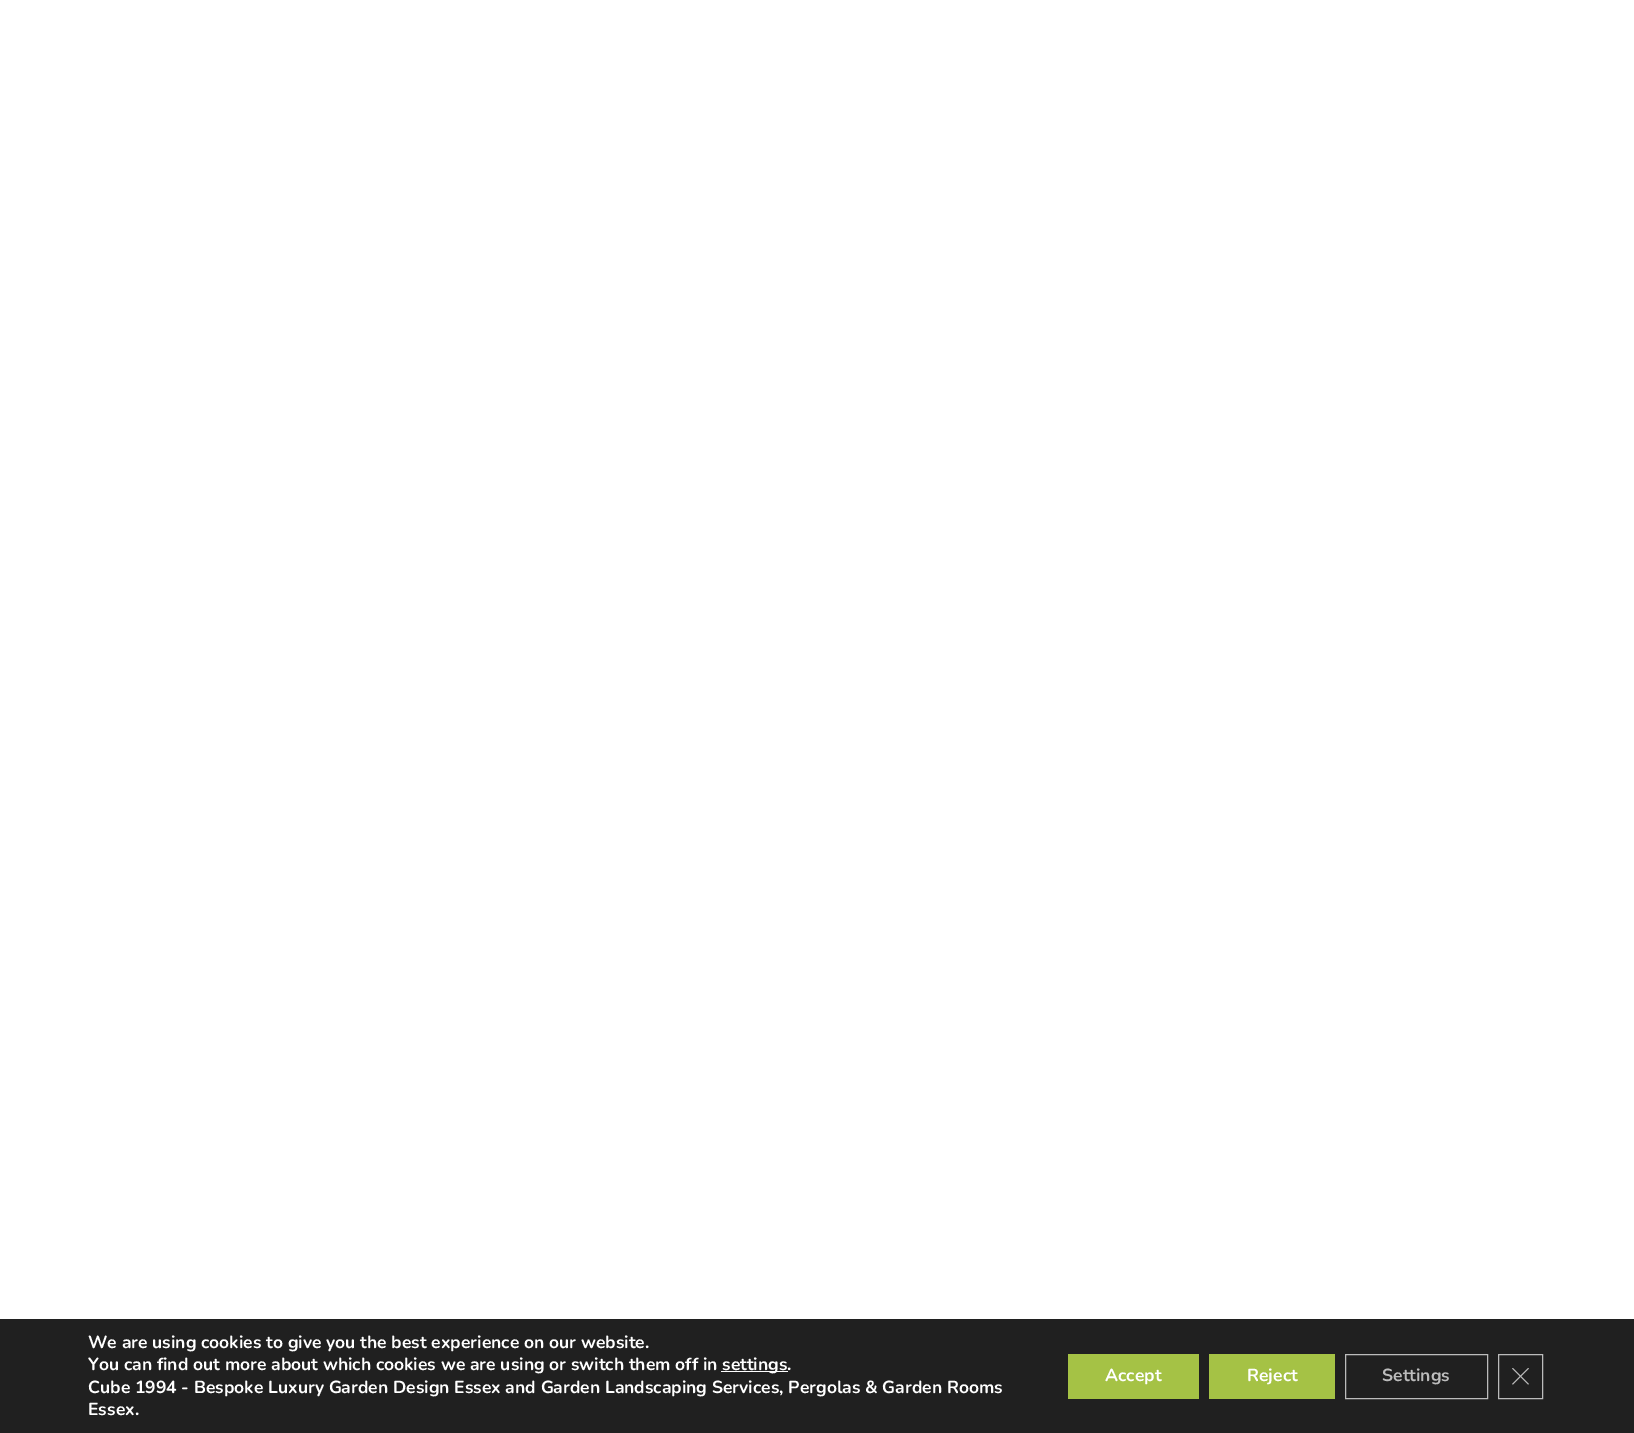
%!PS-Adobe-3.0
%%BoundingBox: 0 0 1634 1433
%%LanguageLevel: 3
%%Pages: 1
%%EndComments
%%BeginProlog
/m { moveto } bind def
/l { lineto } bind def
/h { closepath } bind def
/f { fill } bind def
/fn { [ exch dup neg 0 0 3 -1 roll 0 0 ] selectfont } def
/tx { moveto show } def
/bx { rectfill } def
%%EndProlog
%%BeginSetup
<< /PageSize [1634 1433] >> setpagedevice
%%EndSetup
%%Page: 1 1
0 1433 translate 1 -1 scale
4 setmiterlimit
1 setgray
0 0 1634 1433 bx
0.125 setgray
0 1319 1634 114 bx
/Nunito-Bold 17.5 fn
1 setgray
(We are using cookies to give you the best experience on our website.) 88 1348 tx
(You can find out more about which cookies we are using or switch them off in) 88 1370 tx
721 1371 67 1 bx
(settings.) 722 1370 tx
(Cube 1994 - Bespoke Luxury Garden Design Essex and Garden Landscaping Services, Pergolas & Garden Rooms) 88 1393 tx
(Essex.) 88 1415 tx
0.647 0.761 0.271 setrgbcolor
1068 1354 131 45 bx
1 setgray
(Accept) 1105 1381 tx
0.647 0.761 0.271 setrgbcolor
1209 1354 126 45 bx
1 setgray
(Reject) 1247 1381 tx
0.737 setgray
1345.5 1354.5 142 44 rectstroke
(Settings) 1382 1381 tx
1498.5 1354.5 44 44 rectstroke
1528 1368 m 1529 1368.5 l 1513 1384.5 l 1512 1384 l h f
1512 1368.5 m 1513 1368 l 1529 1384 l 1528 1384.5 l h f
showpage
%%EOF
